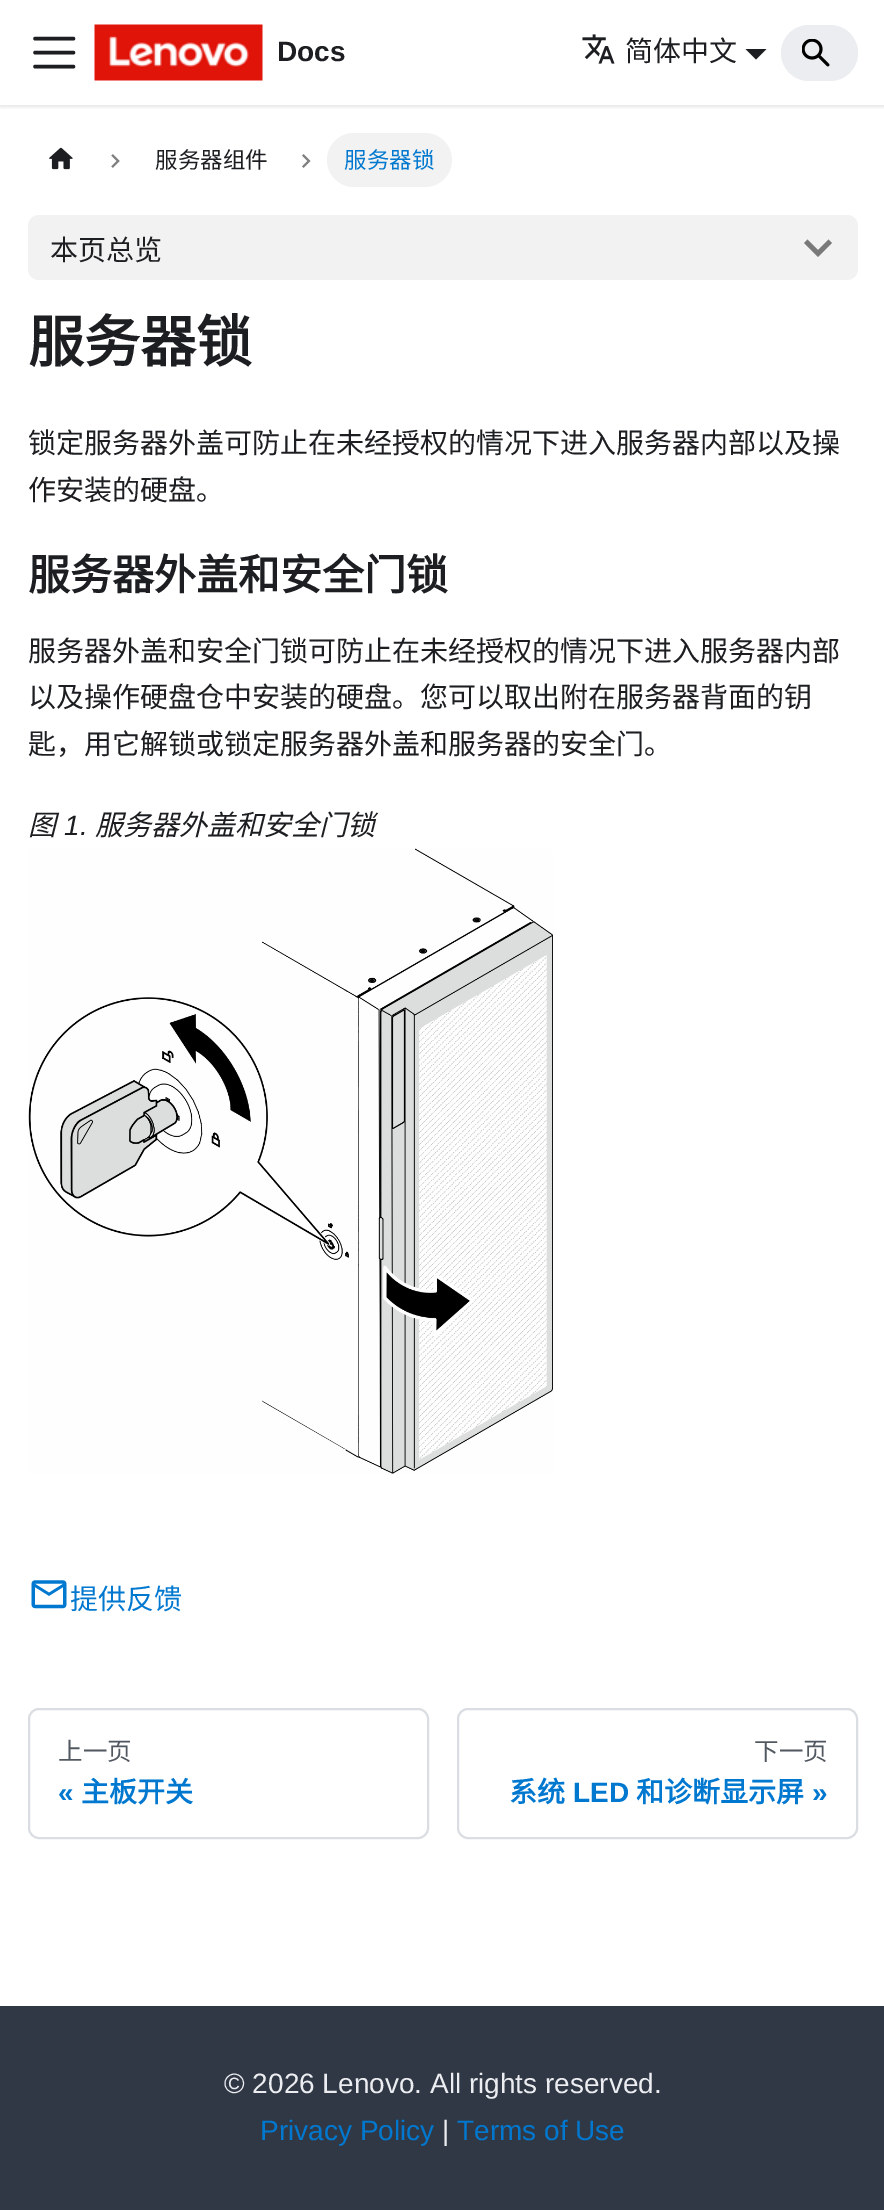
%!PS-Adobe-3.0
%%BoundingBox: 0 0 884 2210
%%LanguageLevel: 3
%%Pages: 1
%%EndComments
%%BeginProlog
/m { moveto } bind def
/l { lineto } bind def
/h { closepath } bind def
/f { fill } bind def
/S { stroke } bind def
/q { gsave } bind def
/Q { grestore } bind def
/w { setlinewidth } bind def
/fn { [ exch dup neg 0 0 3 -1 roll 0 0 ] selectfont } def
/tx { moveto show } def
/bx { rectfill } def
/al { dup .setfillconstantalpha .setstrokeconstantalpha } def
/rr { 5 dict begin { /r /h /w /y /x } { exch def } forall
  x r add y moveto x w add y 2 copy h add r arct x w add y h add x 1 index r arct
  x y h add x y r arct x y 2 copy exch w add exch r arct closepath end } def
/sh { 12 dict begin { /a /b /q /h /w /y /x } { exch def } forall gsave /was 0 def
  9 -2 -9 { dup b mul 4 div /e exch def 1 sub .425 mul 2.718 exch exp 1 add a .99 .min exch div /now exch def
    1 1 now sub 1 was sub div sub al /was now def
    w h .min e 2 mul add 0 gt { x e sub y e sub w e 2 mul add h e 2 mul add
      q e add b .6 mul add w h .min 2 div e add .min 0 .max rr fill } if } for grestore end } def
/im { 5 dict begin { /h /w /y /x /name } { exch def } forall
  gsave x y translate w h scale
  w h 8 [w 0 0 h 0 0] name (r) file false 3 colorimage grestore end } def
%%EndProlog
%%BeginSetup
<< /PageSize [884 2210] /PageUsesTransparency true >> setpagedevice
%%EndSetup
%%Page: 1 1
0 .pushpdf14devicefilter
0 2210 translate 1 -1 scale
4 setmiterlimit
1 setgray
0 0 884 2210 bx
q
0 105 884 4 rectclip
0 setgray
0 2 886 105 0 2 0.1 sh
Q
0.11 0.118 0.129 setrgbcolor
3.5 w
1 setlinecap
35 38.5 m 73.5 38.5 l 35 52.5 m 73.5 52.5 l 35 66.5 m 73.5 66.5 l S
(image0.raw) 94 24 169 57 im
/LiberationSans-Bold 28 fn
(Docs) 277 61 tx
(image1.raw) 582 34 33 30 im
/NotoSansCJKSC-Regular 28 fn
(简体中文) 625 61 tx
745.5 49 m 766.5 49 l 756 59.5 l h f
0.922 0.929 0.941 setrgbcolor
781 25 77 56 28 rr f
(image2.raw) 802 39 28 28 im
(image3.raw) 49 147 24 23 im
(image4.raw) 111 154 9 14 im
/NotoSansCJKSC-Regular 22.5 fn
0.11 0.118 0.129 setrgbcolor
(服务器组件) 155 168 tx
(image5.raw) 302 154 9 14 im
0.949 setgray
327 133 125 54 27 rr f
0 0.471 0.816 setrgbcolor
(服务器锁) 344 168 tx
0.949 setgray
28 215 830 65 11 rr f
/NotoSansCJKSC-Regular 28 fn
0.11 0.118 0.129 setrgbcolor
(本页总览) 50 260 tx
0.475 setgray
828.5 239.5 m 818 250 l 807.5 239.5 l 804 243 l 818 257 l 832 243 l h f
/NotoSansCJKSC-Bold 56 fn
0.11 0.118 0.129 setrgbcolor
(服务器锁) 28 362 tx
/NotoSansCJKSC-Regular 28 fn
(锁定服务器外盖可防止在未经授权的情况下进入服务器内部以及操) 28 453 tx
(作安装的硬盘。) 28 500 tx
/NotoSansCJKSC-Bold 42 fn
(服务器外盖和安全门锁) 28 590 tx
/NotoSansCJKSC-Regular 28 fn
(服务器外盖和安全门锁可防止在未经授权的情况下进入服务器内部) 28 661 tx
(以及操作硬盘仓中安装的硬盘。您可以取出附在服务器背面的钥) 28 707 tx
(匙，用它解锁或锁定服务器外盖和服务器的安全门。) 28 754 tx
/NotoSansCJKSC-Italic 28 fn
(图) 28 835 tx
/LiberationSans-Italic 28 fn
(1.) 64 835 tx
/NotoSansCJKSC-Italic 28 fn
(服务器外盖和安全门锁) 95 835 tx
(image6.raw) 28 848 525 626 im
(image7.raw) 31 1580 36 29 im
/NotoSansCJKSC-Regular 28 fn
0 0.471 0.816 setrgbcolor
(提供反馈) 70 1609 tx
0.855 0.867 0.882 setrgbcolor
2 w
0 setlinecap
29 1709 399 129 10 rr S
/NotoSansCJKSC-Regular 24.5 fn
0.322 0.345 0.376 setrgbcolor
(上一页) 58 1760 tx
/LiberationSans-Bold 28 fn
0 0.471 0.816 setrgbcolor
(«) 58 1802 tx
/NotoSansCJKSC-Bold 28 fn
(主板开关) 81 1802 tx
0.855 0.867 0.882 setrgbcolor
458 1709 399 129 10 rr S
/NotoSansCJKSC-Regular 24.5 fn
0.322 0.345 0.376 setrgbcolor
(下一页) 754 1760 tx
/NotoSansCJKSC-Bold 28 fn
0 0.471 0.816 setrgbcolor
(系统) 509 1802 tx
/LiberationSans-Bold 28 fn
(LED) 573 1802 tx
/NotoSansCJKSC-Bold 28 fn
(和诊断显示屏) 636 1802 tx
/LiberationSans-Bold 28 fn
(») 812 1802 tx
0.188 0.22 0.275 setrgbcolor
0 2006 884 204 bx
/LiberationSans-Regular 28 fn
0.922 0.929 0.941 setrgbcolor
(© 2026 Lenovo. All rights reserved.) 224 2093 tx
0 0.471 0.816 setrgbcolor
(Privacy Policy) 260 2140 tx
0.922 0.929 0.941 setrgbcolor
(|) 442 2140 tx
0 0.471 0.816 setrgbcolor
(Terms of Use) 457 2140 tx
.poppdf14devicefilter showpage
%%EOF
